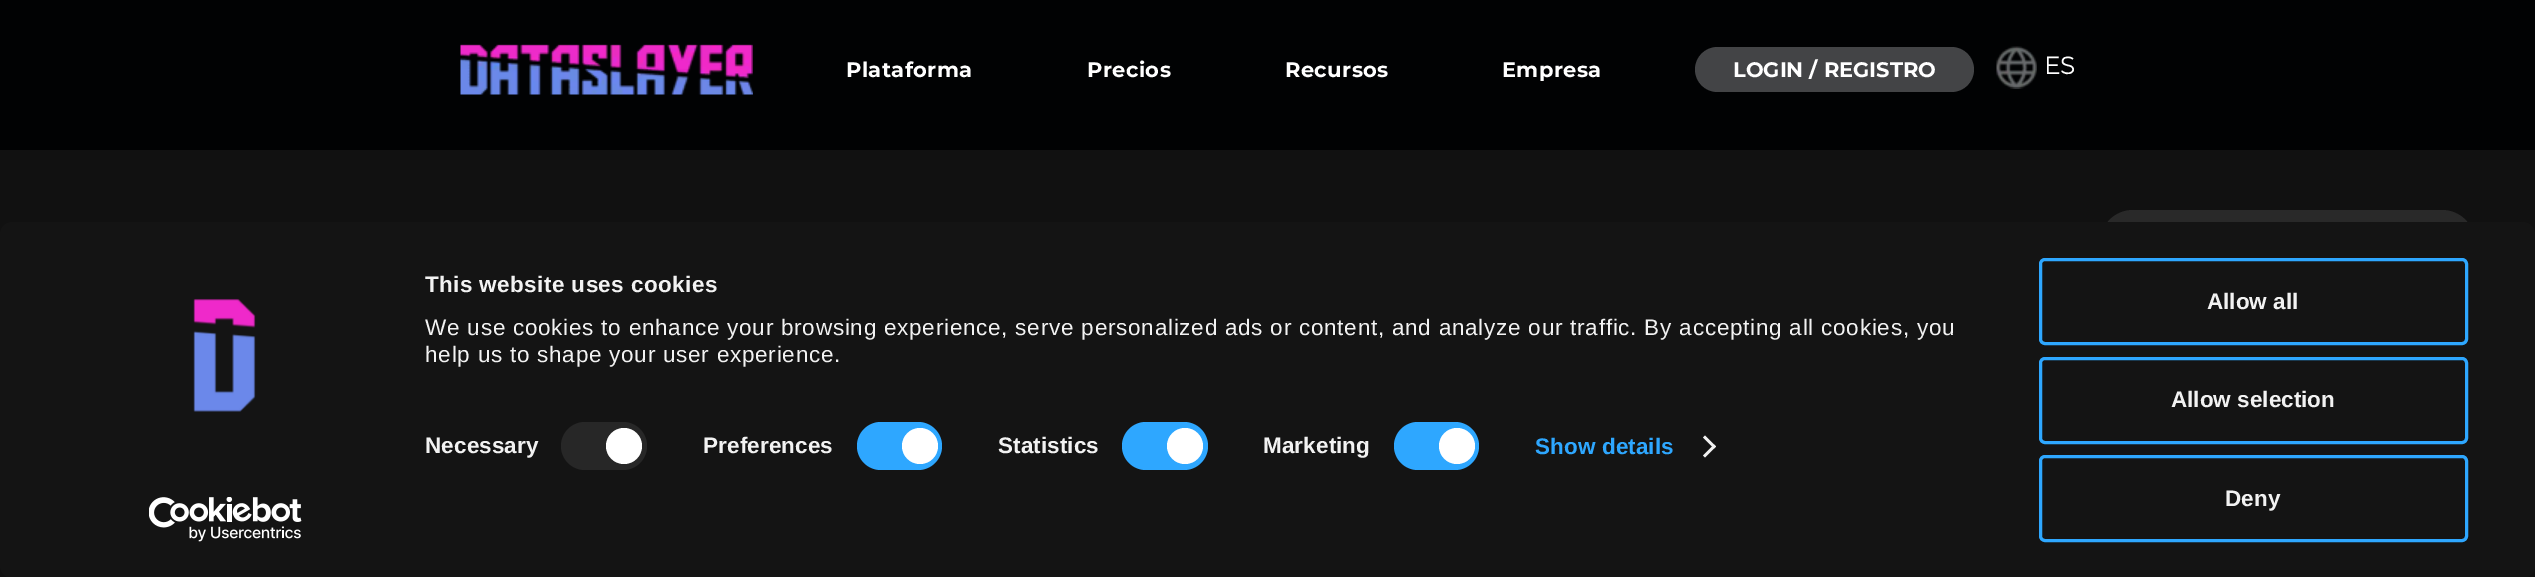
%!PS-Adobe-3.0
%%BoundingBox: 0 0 2535 577
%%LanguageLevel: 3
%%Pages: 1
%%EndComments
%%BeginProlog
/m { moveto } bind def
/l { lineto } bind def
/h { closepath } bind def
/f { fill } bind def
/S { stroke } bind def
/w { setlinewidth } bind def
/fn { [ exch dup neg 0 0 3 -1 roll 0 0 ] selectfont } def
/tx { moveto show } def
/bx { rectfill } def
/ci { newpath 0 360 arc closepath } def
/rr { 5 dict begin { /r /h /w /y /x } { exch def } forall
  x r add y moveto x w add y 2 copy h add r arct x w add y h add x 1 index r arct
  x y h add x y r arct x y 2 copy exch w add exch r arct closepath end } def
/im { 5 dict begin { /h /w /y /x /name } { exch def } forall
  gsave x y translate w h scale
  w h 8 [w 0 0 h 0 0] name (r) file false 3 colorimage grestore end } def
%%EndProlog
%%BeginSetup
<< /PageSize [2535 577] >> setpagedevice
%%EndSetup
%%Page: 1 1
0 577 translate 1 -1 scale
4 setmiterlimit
0.004 0.008 0.012 setrgbcolor
0 0 2535 577 bx
(image0.raw) 460 44 293 51 im
/Montserrat-Thin 21 fn
1 setgray
846 77 m 0.4 0 (Plataforma) ashow
1087 77 m 0.4 0 (Precios) ashow
1285 77 m 0.4 0 (Recursos) ashow
1502 77 m 0.4 0 (Empresa) ashow
0.263 0.267 0.275 setrgbcolor
1695 47 279 45 22.5 rr f
1 setgray
(LOGIN / REGISTRO) 1733 77 tx
(image1.raw) 1996 46 41 43 im
/Montserrat-Bold 24 fn
(ES) 2044 74 tx
0.067 setgray
0 150 2535 427 bx
0.161 setgray
2100 210 375 66 33 rr f
0.078 setgray
0 222 2535 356 12 rr f
(image2.raw) 193 298 63 114 im
(image3.raw) 149 497 153 45 im
/LiberationSans-Bold 22.5 fn
0.949 setgray
425 292 m 0.4 0 (This website uses cookies) ashow
/LiberationSans-Regular 22.5 fn
425 335 m 0.75 0 (We use cookies to enhance your browsing experience, serve personalized ads or content, and analyze our traffic. By accepting all cookies, you) ashow
425 362 m 0.75 0 (help us to shape your user experience.) ashow
/LiberationSans-Bold 22.5 fn
425 453 m 0.1 0 (Necessary) ashow
0.153 setgray
561 422 86 48 24 rr f
1 setgray
624 446 18 ci f
0.949 setgray
703 453 m 0.1 0 (Preferences) ashow
0.18 0.655 1 setrgbcolor
857 422 85 48 24 rr f
1 setgray
920 446 18 ci f
0.949 setgray
998 453 m 0.1 0 (Statistics) ashow
0.18 0.655 1 setrgbcolor
1122 422 86 48 24 rr f
1 setgray
1185 446 18 ci f
0.949 setgray
1263 453 m 0.1 0 (Marketing) ashow
0.18 0.655 1 setrgbcolor
1394 422 85 48 24 rr f
1 setgray
1457 446 18 ci f
0.18 0.655 1 setrgbcolor
1535 454 m 0.1 0 (Show details) ashow
0.949 setgray
1705 435.5 m 1716 446.5 l 1714 448.5 l 1703 437.5 l h f
1714 444.5 m 1716 446.5 l 1705 457.5 l 1703 455.5 l h f
0.18 0.655 1 setrgbcolor
3 w
2040.5 259.5 426 84 4.5 rr S
0.949 setgray
(Allow all) 2207 309 tx
0.18 0.655 1 setrgbcolor
2040.5 358.5 426 84 4.5 rr S
0.949 setgray
(Allow selection) 2171 407 tx
0.18 0.655 1 setrgbcolor
2040.5 456.5 426 84 4.5 rr S
0.949 setgray
(Deny) 2225 506 tx
showpage
%%EOF
